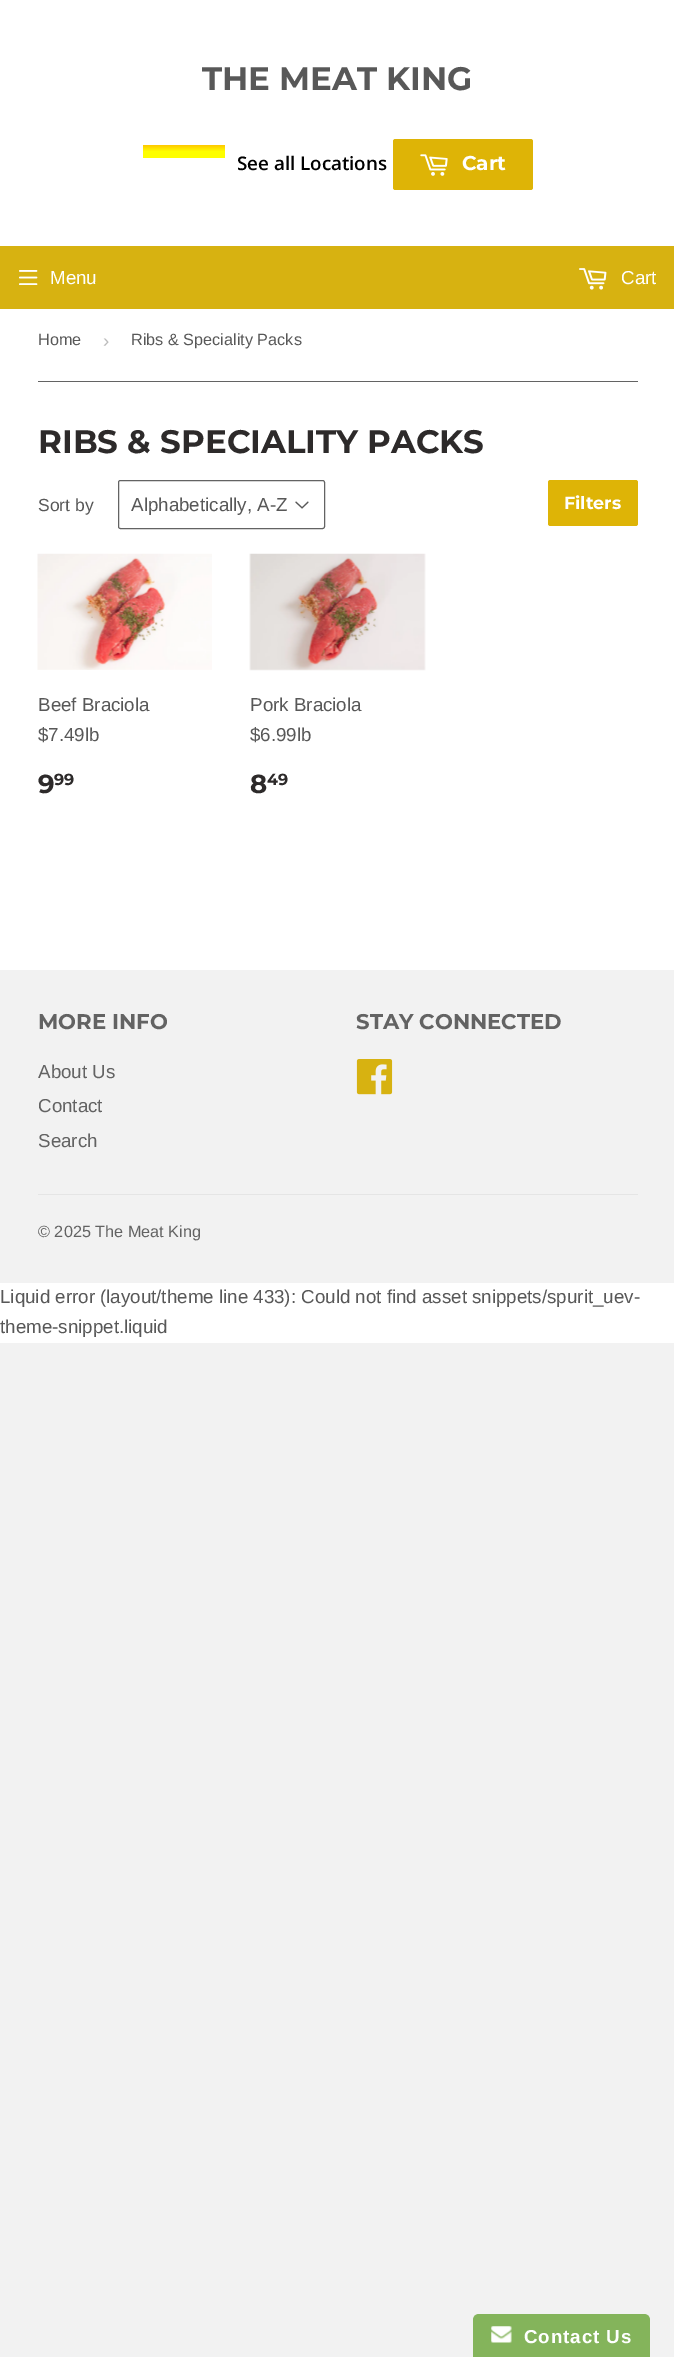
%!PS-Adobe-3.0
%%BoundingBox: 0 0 674 2357
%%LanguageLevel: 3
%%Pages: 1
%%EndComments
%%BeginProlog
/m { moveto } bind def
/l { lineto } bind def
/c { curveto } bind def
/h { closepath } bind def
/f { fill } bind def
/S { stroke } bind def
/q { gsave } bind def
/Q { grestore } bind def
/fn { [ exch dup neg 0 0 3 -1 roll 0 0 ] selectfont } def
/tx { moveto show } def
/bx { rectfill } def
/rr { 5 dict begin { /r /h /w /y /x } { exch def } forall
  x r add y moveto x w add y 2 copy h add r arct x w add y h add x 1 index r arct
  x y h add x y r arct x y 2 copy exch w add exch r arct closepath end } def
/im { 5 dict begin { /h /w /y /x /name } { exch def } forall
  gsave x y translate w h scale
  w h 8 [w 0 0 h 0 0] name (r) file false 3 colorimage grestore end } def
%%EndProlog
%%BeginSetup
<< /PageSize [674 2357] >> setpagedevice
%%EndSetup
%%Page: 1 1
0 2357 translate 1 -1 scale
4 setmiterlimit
0.949 setgray
0 0 674 2357 bx
1 setgray
0 0 674 1343 bx
/Montserrat-Thin 32.5 fn
0.345 setgray
(THE MEAT KING) 202 90 tx
q 143 145 m 225 145 l 225 158 l 143 158 l h clip newpath
<< /ShadingType 2 /ColorSpace /DeviceRGB /Coords [184 145 184 158] /Extend [true true] /Function << /FunctionType 3 /Domain [0 1] /Functions [<< /FunctionType 2 /Domain [0 1] /C0 [0.996 0.78 0] /C1 [0.996 0.996 0] /N 1 >> << /FunctionType 2 /Domain [0 1] /C0 [0.996 0.996 0] /C1 [0.996 0.996 0] /N 1 >>] /Bounds [0.5] /Encode [0 1 0 1] >> >> shfill Q
/OpenSans-SemiBold 18.75 fn
0 setgray
(See all Locations) 237 170 tx
0.871 0.706 0.024 setrgbcolor
393 139 140 51 2.5 rr f
(image0.raw) 420 154 28 22 im
/Montserrat-Thin 20 fn
1 setgray
(Cart) 462 170 tx
0.843 0.698 0.067 setrgbcolor
0 246 674 63 bx
(image1.raw) 19 270 19 15 im
/LiberationSans-Regular 18.75 fn
1 setgray
(Menu) 50 284 tx
(image2.raw) 579 268 28 22 im
(Cart) 621 284 tx
0.388 setgray
38 381 600 1 bx
/LiberationSans-Regular 16.25 fn
0.345 setgray
(Home) 38 345 tx
/LiberationSans-Regular 18.75 fn
0.733 setgray
(›) 103 347 tx
/LiberationSans-Regular 16.25 fn
0.345 setgray
(Ribs & Speciality Packs) 131 345 tx
/Montserrat-Thin 32.5 fn
0.176 0.165 0.165 setrgbcolor
(RIBS & SPECIALITY PACKS) 38 453 tx
/LiberationSans-Regular 17.5 fn
0.345 setgray
(Sort by) 38 511 tx
(image3.raw) 295 501 14 8 im
0.388 setgray
118.5 480.5 206 48 2 rr S
/LiberationSans-Regular 18.75 fn
0.345 setgray
(Alphabetically, A-Z) 131 511 tx
0.871 0.706 0.024 setrgbcolor
548 480 90 46 2.5 rr f
/Montserrat-Thin 17.5 fn
1 setgray
(Filters) 564 509 tx
(image4.raw) 37 553 175 117 im
/LiberationSans-Regular 18.75 fn
0.345 setgray
(Beef Braciola) 38 711 tx
($7.49lb) 38 741 tx
/Montserrat-Thin 26 fn
0.176 0.165 0.165 setrgbcolor
(9) 38 793 tx
/Montserrat-Thin 16 fn
(99) 54 785 tx
(image5.raw) 249 553 177 118 im
/LiberationSans-Regular 18.75 fn
0.345 setgray
(Pork Braciola) 250 711 tx
($6.99lb) 250 741 tx
/Montserrat-Thin 26 fn
0.176 0.165 0.165 setrgbcolor
(8) 250 793 tx
/Montserrat-Thin 16 fn
(49) 267 785 tx
0.949 setgray
0 970 674 313 bx
/Montserrat-Thin 21.25 fn
0.388 setgray
(MORE INFO) 38 1029 tx
/LiberationSans-Regular 18.75 fn
(About Us) 38 1078 tx
(Contact) 38 1112 tx
(Search) 38 1147 tx
/Montserrat-Thin 21.25 fn
(STAY CONNECTED) 356 1029 tx
(image6.raw) 356 1059 37 36 im
0.898 setgray
38 1194 600 1 bx
/LiberationSans-Regular 16.25 fn
0.388 setgray
(© 2025 The Meat King) 38 1237 tx
/LiberationSans-Regular 18.75 fn
0.345 setgray
(Liquid error \(layout/theme line 433\): Could not find asset snippets/spurit_uev-) 0 1303 tx
(theme-snippet.liquid) 0 1333 tx
0.518 0.706 0.357 setrgbcolor
479 2314 m 644 2314 l 647.5 2314 650 2316.5 650 2320 c 650 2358 l 473 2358 l 473 2320 l 473 2316.5 475.5 2314 479 2314 c h f
(image7.raw) 491 2326 21 17 im
/LiberationSans-Bold 18.75 fn
1 setgray
524 2343 m 0.9 0 (Contact Us) ashow
showpage
%%EOF
